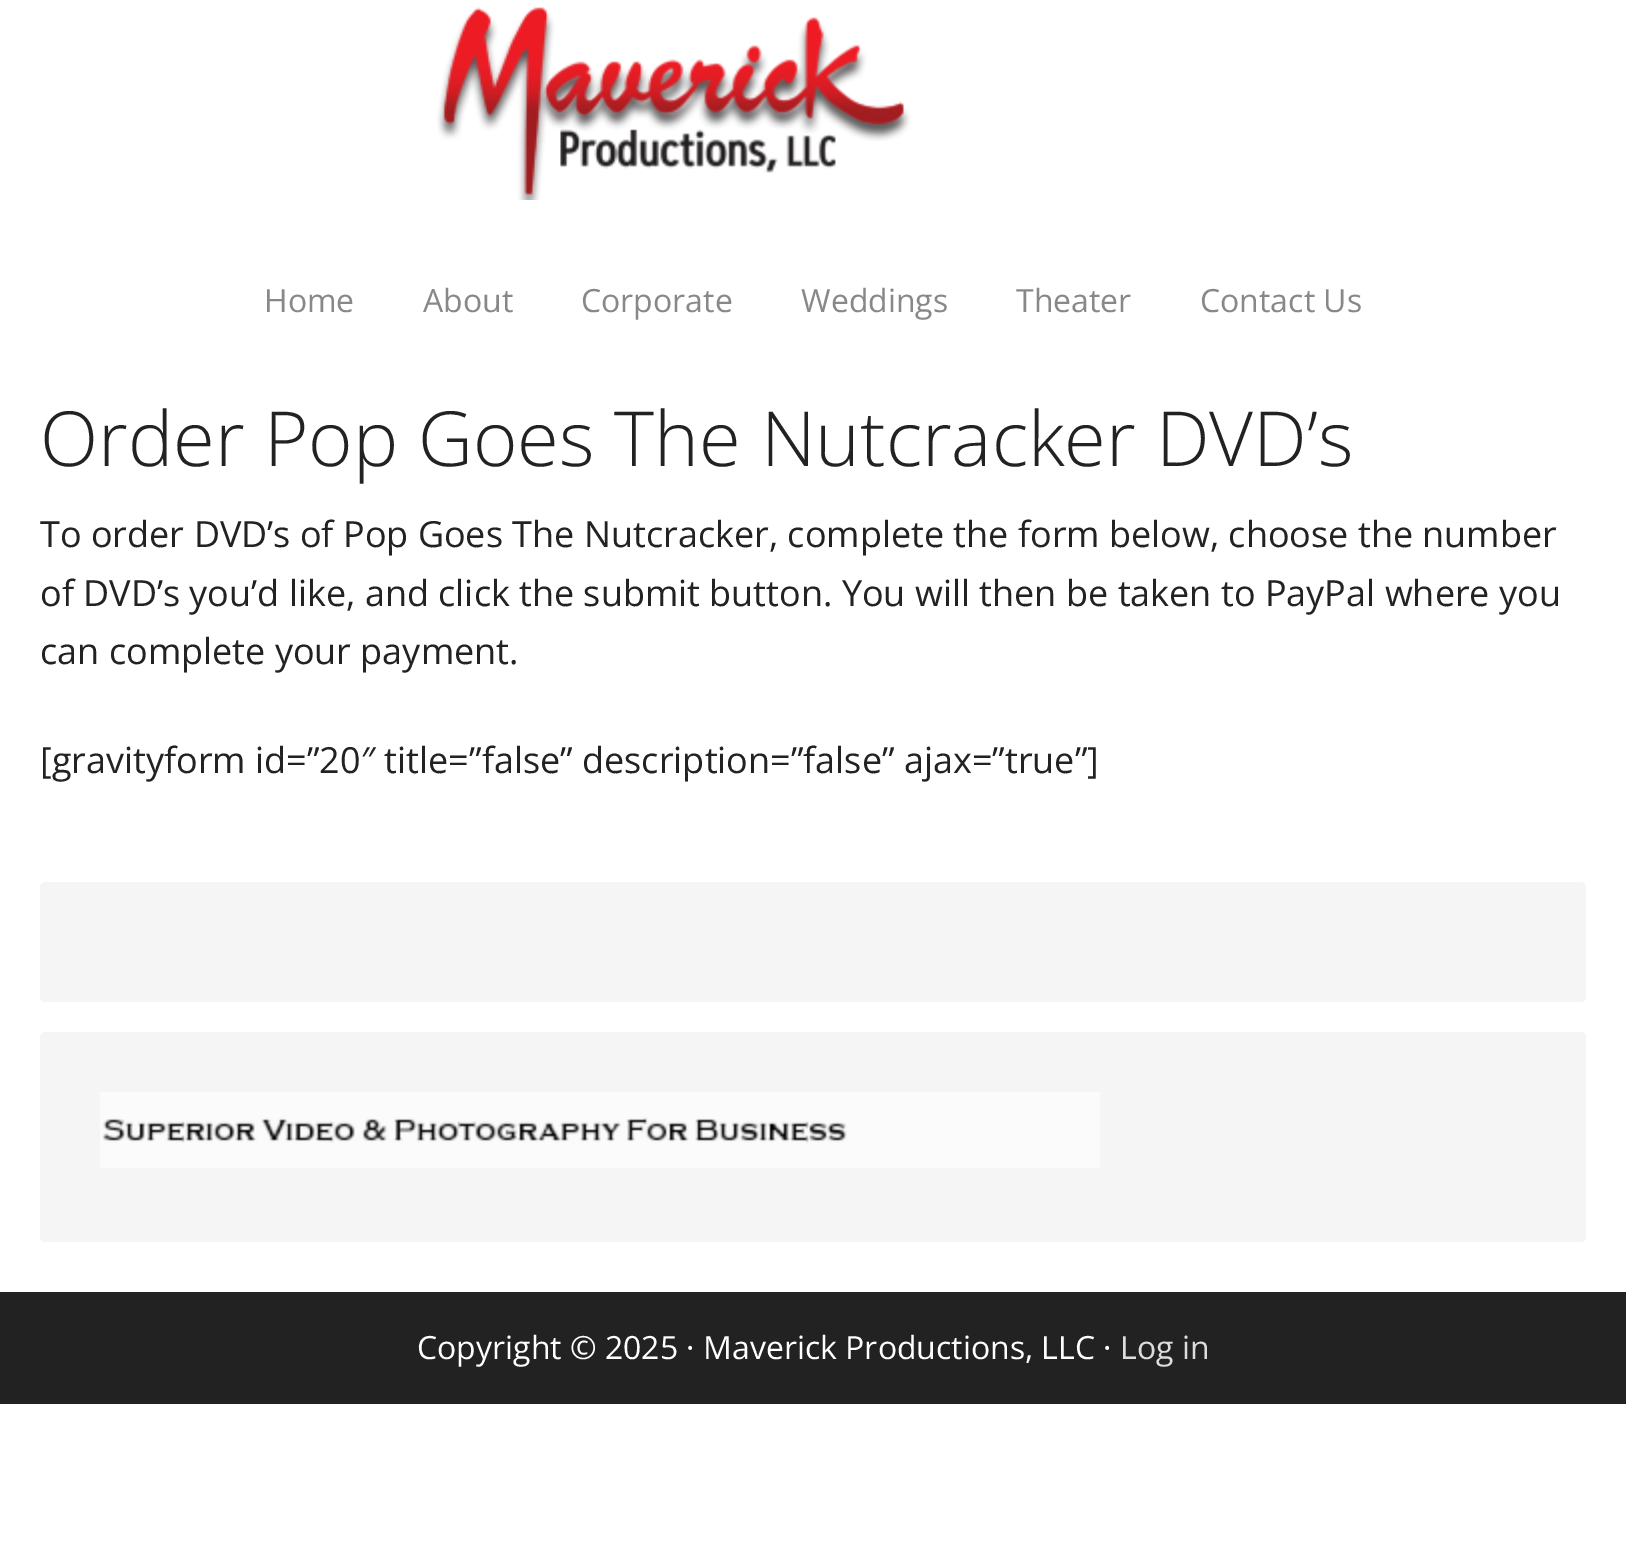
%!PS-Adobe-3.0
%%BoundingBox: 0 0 1626 1551
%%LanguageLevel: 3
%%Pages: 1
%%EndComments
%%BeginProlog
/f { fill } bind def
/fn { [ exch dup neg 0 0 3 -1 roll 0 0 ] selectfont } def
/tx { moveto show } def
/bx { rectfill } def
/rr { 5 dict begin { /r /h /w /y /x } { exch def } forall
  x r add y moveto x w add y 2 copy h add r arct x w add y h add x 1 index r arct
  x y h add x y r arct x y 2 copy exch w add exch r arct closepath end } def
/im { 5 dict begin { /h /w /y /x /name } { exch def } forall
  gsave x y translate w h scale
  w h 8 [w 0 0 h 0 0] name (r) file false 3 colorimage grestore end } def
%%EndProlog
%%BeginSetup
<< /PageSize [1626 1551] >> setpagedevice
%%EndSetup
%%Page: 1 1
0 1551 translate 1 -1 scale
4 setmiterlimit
1 setgray
0 0 1626 1551 bx
(image0.raw) 437 7 473 193 im
/OpenSans-Regular 32 fn
0.533 setgray
(Home) 264 312 tx
(About) 423 312 tx
(Corporate) 581 312 tx
(Weddings) 801 312 tx
(Theater) 1016 312 tx
(Contact Us) 1200 312 tx
/OpenSans-Light 76 fn
0.133 setgray
(Order Pop Goes The Nutcracker DVD’s) 40 466 tx
/OpenSans-Regular 36 fn
(To order DVD’s of Pop Goes The Nutcracker, complete the form below, choose the number) 40 547 tx
(of DVD’s you’d like, and click the submit button. You will then be taken to PayPal where you) 40 606 tx
(can complete your payment.) 40 664 tx
([gravityform id=”20″ title=”false” description=”false” ajax=”true”]) 40 773 tx
0.961 setgray
40 882 1546 120 6 rr f
40 1032 1546 210 6 rr f
(image1.raw) 100 1092 1000 76 im
0.133 setgray
0 1292 1626 112 bx
/OpenSans-Regular 32 fn
1 setgray
(Copyright © 2025 · Maverick Productions, LLC ·) 417 1359 tx
0.867 setgray
(Log in) 1120 1359 tx
showpage
%%EOF
